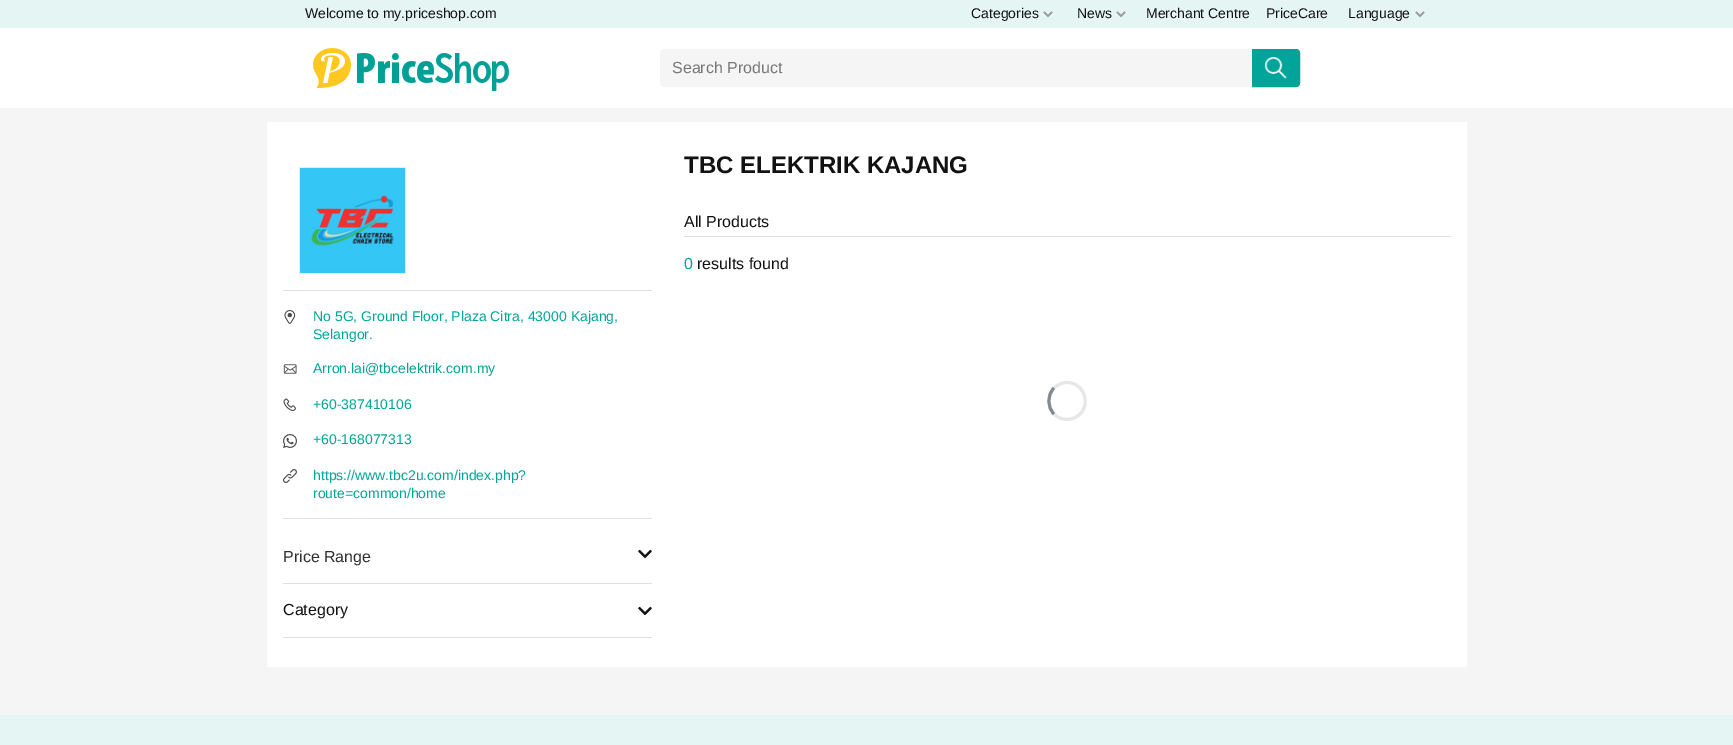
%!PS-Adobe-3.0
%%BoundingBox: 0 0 1733 745
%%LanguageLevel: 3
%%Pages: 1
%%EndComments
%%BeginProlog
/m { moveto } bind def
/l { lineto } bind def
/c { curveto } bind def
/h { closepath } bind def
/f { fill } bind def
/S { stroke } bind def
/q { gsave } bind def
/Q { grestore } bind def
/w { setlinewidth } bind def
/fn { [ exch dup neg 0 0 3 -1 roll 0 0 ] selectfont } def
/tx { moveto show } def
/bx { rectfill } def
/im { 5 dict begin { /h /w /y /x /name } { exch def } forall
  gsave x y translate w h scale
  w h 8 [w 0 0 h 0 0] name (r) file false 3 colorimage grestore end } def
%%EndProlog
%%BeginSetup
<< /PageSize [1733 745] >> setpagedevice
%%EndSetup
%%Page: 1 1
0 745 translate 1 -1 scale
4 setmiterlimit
0.961 setgray
0 0 1733 745 bx
0.898 0.961 0.957 setrgbcolor
0 0 1733 28 bx
/LiberationSans-Regular 14 fn
0.071 setgray
(Welcome to my.priceshop.com) 305 18 tx
(Categories) 971 18 tx
0.6 setgray
1.5 w
1052 12 m 1048 16 l 1044 12 l S
0.071 setgray
(News) 1077 18 tx
0.6 setgray
1125 12 m 1121 16 l 1117 12 l S
0.071 setgray
(Merchant Centre) 1146 18 tx
(PriceCare) 1266 18 tx
(Language) 1348 18 tx
0.6 setgray
1424 12 m 1420 16 l 1416 12 l S
1 setgray
0 28 1733 80 bx
(image0.raw) 313 48 196 43 im
0.961 setgray
664 49 m 1253 49 l 1253 87 l 664 87 l 662 87 660 85 660 83 c 660 53 l 660 51 662 49 664 49 c h f
/LiberationSans-Regular 16 fn
0.467 setgray
(Search Product) 672 73 tx
0 0.643 0.6 setrgbcolor
1252.5 49.5 m 1296 49.5 l 1298 49.5 1299.5 51 1299.5 53 c 1299.5 83 l 1299.5 85 1298 86.5 1296 86.5 c 1252.5 86.5 l h q f Q
1 w
S
(image1.raw) 1264 57 23 22 im
1 setgray
267 122 1200 545 bx
/LiberationSans-Bold 24 fn
0.071 setgray
(TBC ELEKTRIK KAJANG) 684 173 tx
0.878 setgray
684 236 767 1 bx
/LiberationSans-Regular 16 fn
0.071 setgray
(All Products) 684 227 tx
0 0.643 0.6 setrgbcolor
(0) 684 269 tx
0.071 setgray
(results found) 697 269 tx
0.902 setgray
3 w
1054 388 m 1057.5 384.5 1062 382.5 1067 382.5 c 1089 382.5 1092.5 415 1070.5 419 c 1064.5 420.5 1058.5 418.5 1054 414 c S
0.506 0.541 0.569 setrgbcolor
1054 414 m 1047 407 1047 395 1054 388 c S
0.922 setgray
1 w
299.5 167.5 106 106 rectstroke
(image2.raw) 300 168 105 105 im
0.878 setgray
283 290 369 1 bx
283 518 369 1 bx
(image3.raw) 284 310 12 14 im
/LiberationSans-Regular 14 fn
0 0.643 0.6 setrgbcolor
(No 5G, Ground Floor, Plaza Citra, 43000 Kajang,) 313 321 tx
(Selangor.) 313 339 tx
(image4.raw) 283 364 14 10 im
(Arron.lai@tbcelektrik.com.my) 313 373 tx
(image5.raw) 283 398 13 13 im
(+60-387410106) 313 409 tx
(image6.raw) 283 434 14 14 im
(+60-168077313) 313 444 tx
(image7.raw) 283 469 14 14 im
(https://www.tbc2u.com/index.php?) 313 480 tx
(route=common/home) 313 498 tx
/LiberationSans-Regular 16 fn
0.184 setgray
(Price Range) 283 562 tx
(image8.raw) 638 549 14 10 im
0.878 setgray
283 583 369 1 bx
0.071 setgray
(Category) 283 615 tx
(image8.raw) 638 606 14 10 im
0.878 setgray
283 637 369 1 bx
0.898 0.961 0.957 setrgbcolor
0 715 1733 30 bx
showpage
%%EOF
